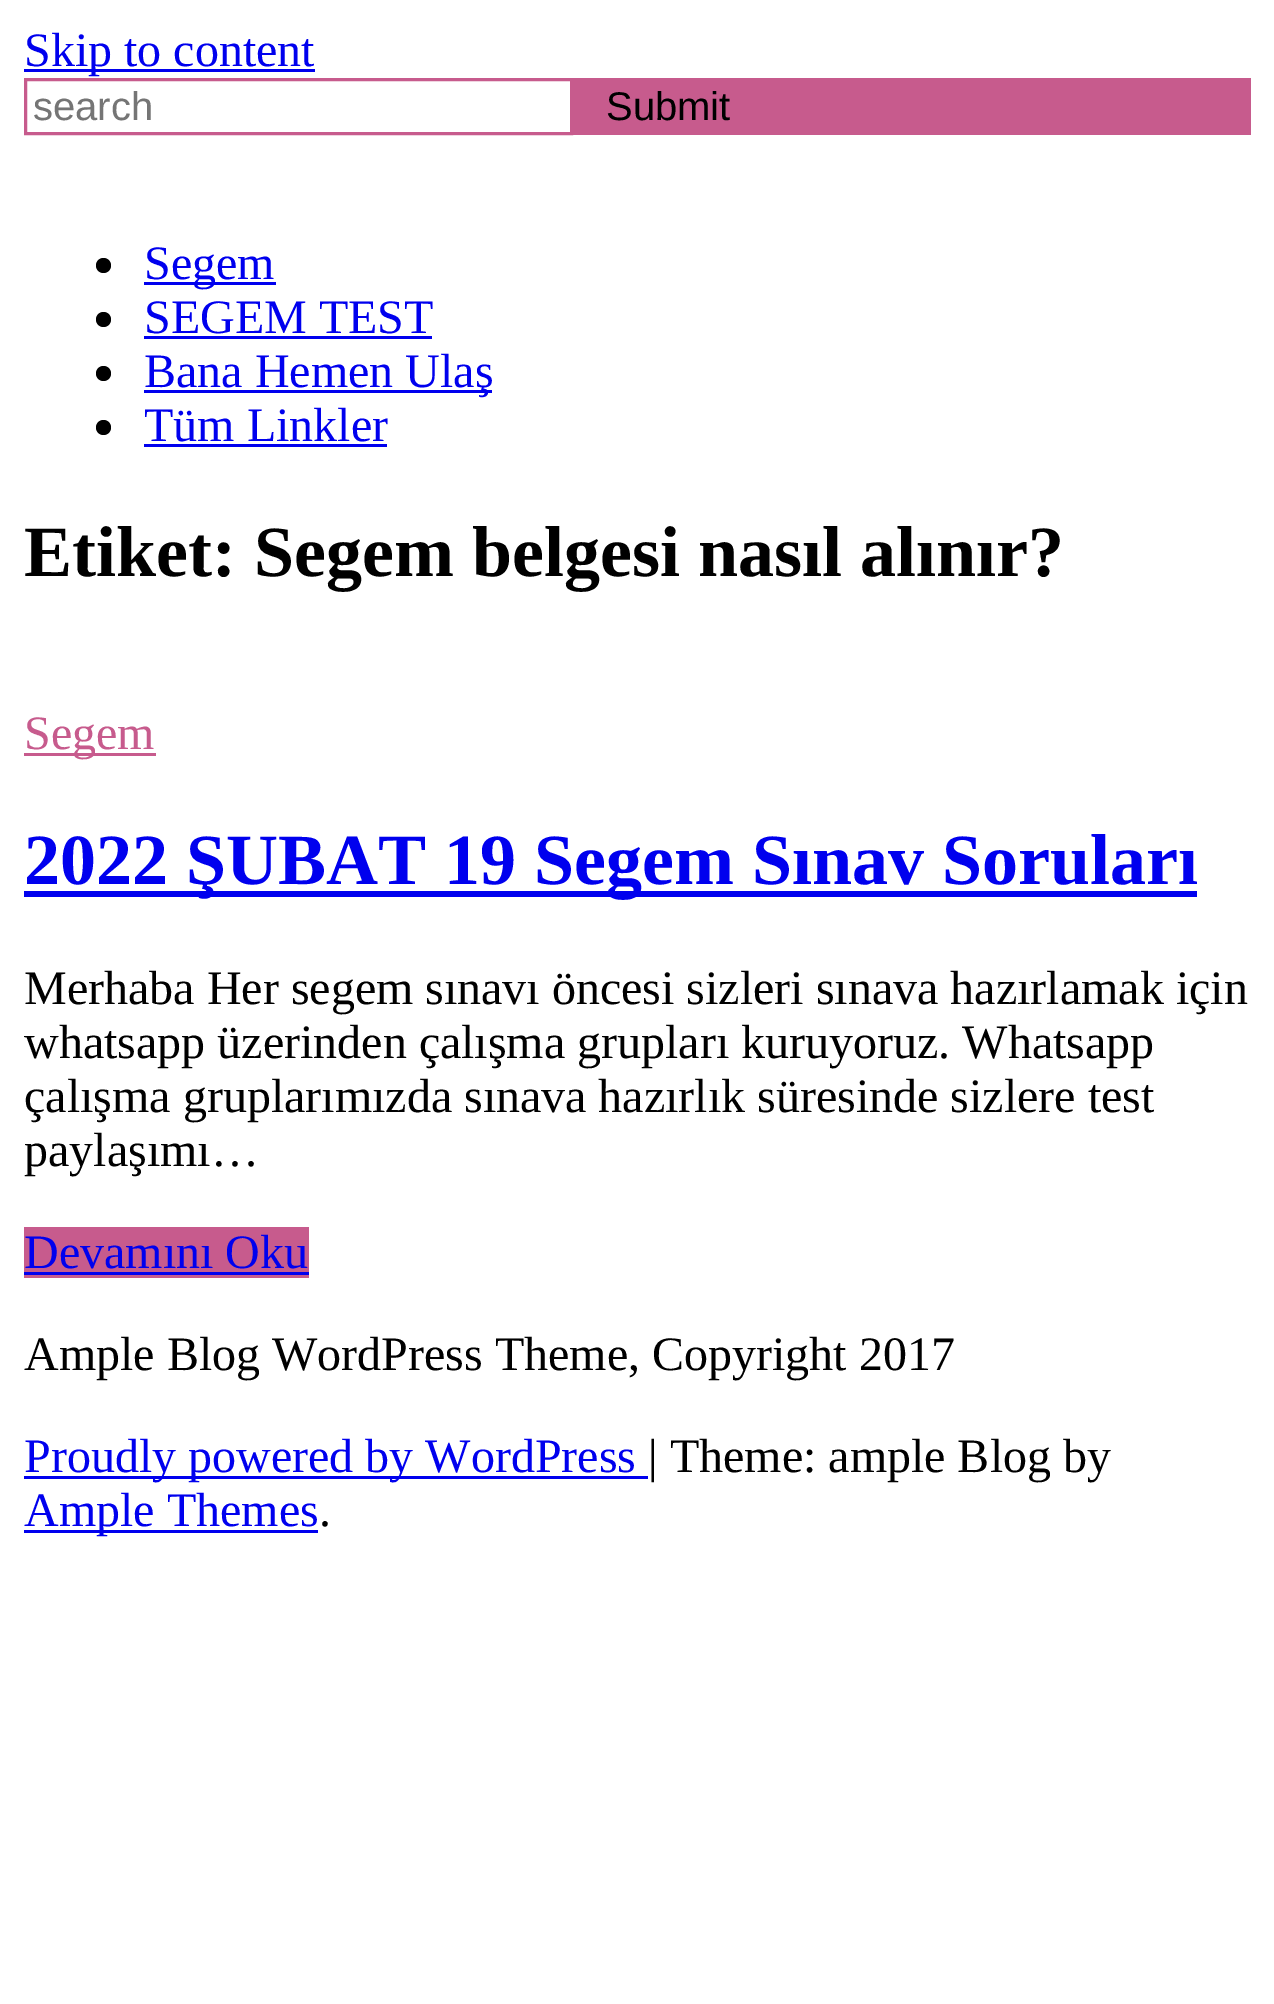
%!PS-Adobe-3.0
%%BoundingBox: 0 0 1274 2004
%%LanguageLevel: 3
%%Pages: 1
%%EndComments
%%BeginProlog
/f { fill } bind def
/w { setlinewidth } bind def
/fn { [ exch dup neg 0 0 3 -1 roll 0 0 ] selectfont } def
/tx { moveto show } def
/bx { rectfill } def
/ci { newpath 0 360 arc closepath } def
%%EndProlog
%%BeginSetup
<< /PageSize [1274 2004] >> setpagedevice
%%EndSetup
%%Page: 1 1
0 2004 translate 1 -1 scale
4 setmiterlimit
1 setgray
0 0 1274 2004 bx
0 0 0.933 setrgbcolor
24 69 291 3 bx
/LiberationSerif-Regular 48 fn
(Skip to content) 24 66 tx
0.78 0.357 0.553 setrgbcolor
573 78 678 57 bx
3 w
25.5 79.5 546 54 rectstroke
/LiberationSans-Regular 40 fn
0.459 setgray
(search) 33 120 tx
0 setgray
(Submit) 606 120 tx
103.5 265.5 7.5 ci f
0 0 0.933 setrgbcolor
144 282 132 3 bx
/LiberationSerif-Regular 48 fn
(Segem) 144 279 tx
0 setgray
103.5 319.5 7.5 ci f
0 0 0.933 setrgbcolor
(SEGEM TEST) 144 333 tx
144 336 288 3 bx
0 setgray
103.5 373.5 7.5 ci f
0 0 0.933 setrgbcolor
144 390 348 3 bx
(Bana Hemen Ulaş) 144 387 tx
0 setgray
103.5 427.5 7.5 ci f
0 0 0.933 setrgbcolor
(Tüm Linkler) 144 441 tx
144 444 243 3 bx
/LiberationSerif-Bold 72 fn
0 setgray
(Etiket: Segem belgesi nasıl alınır?) 24 576 tx
0.78 0.357 0.553 setrgbcolor
24 753 132 3 bx
/LiberationSerif-Regular 48 fn
(Segem) 24 749 tx
0 0 0.933 setrgbcolor
24 891 1173 6 bx
/LiberationSerif-Bold 72 fn
(2022 ŞUBAT 19 Segem Sınav Soruları) 24 884 tx
/LiberationSerif-Regular 48 fn
0 setgray
(Merhaba Her segem sınavı öncesi sizleri sınava hazırlamak için) 24 1004 tx
(whatsapp üzerinden çalışma grupları kuruyoruz. Whatsapp) 24 1058 tx
(çalışma gruplarımızda sınava hazırlık süresinde sizlere test) 24 1112 tx
(paylaşımı…) 24 1166 tx
0.78 0.357 0.553 setrgbcolor
24 1227 285 51 bx
0 0 0.933 setrgbcolor
(Devamını Oku) 24 1268 tx
24 1272 285 3 bx
0 setgray
(Ample Blog WordPress Theme, Copyright 2017) 24 1370 tx
0 0 0.933 setrgbcolor
24 1476 624 3 bx
(Proudly powered by WordPress) 24 1472 tx
0 setgray
(| Theme: ample Blog by) 648 1472 tx
0 0 0.933 setrgbcolor
24 1530 294 3 bx
(Ample Themes) 24 1526 tx
0 setgray
(.) 319 1526 tx
showpage
%%EOF
